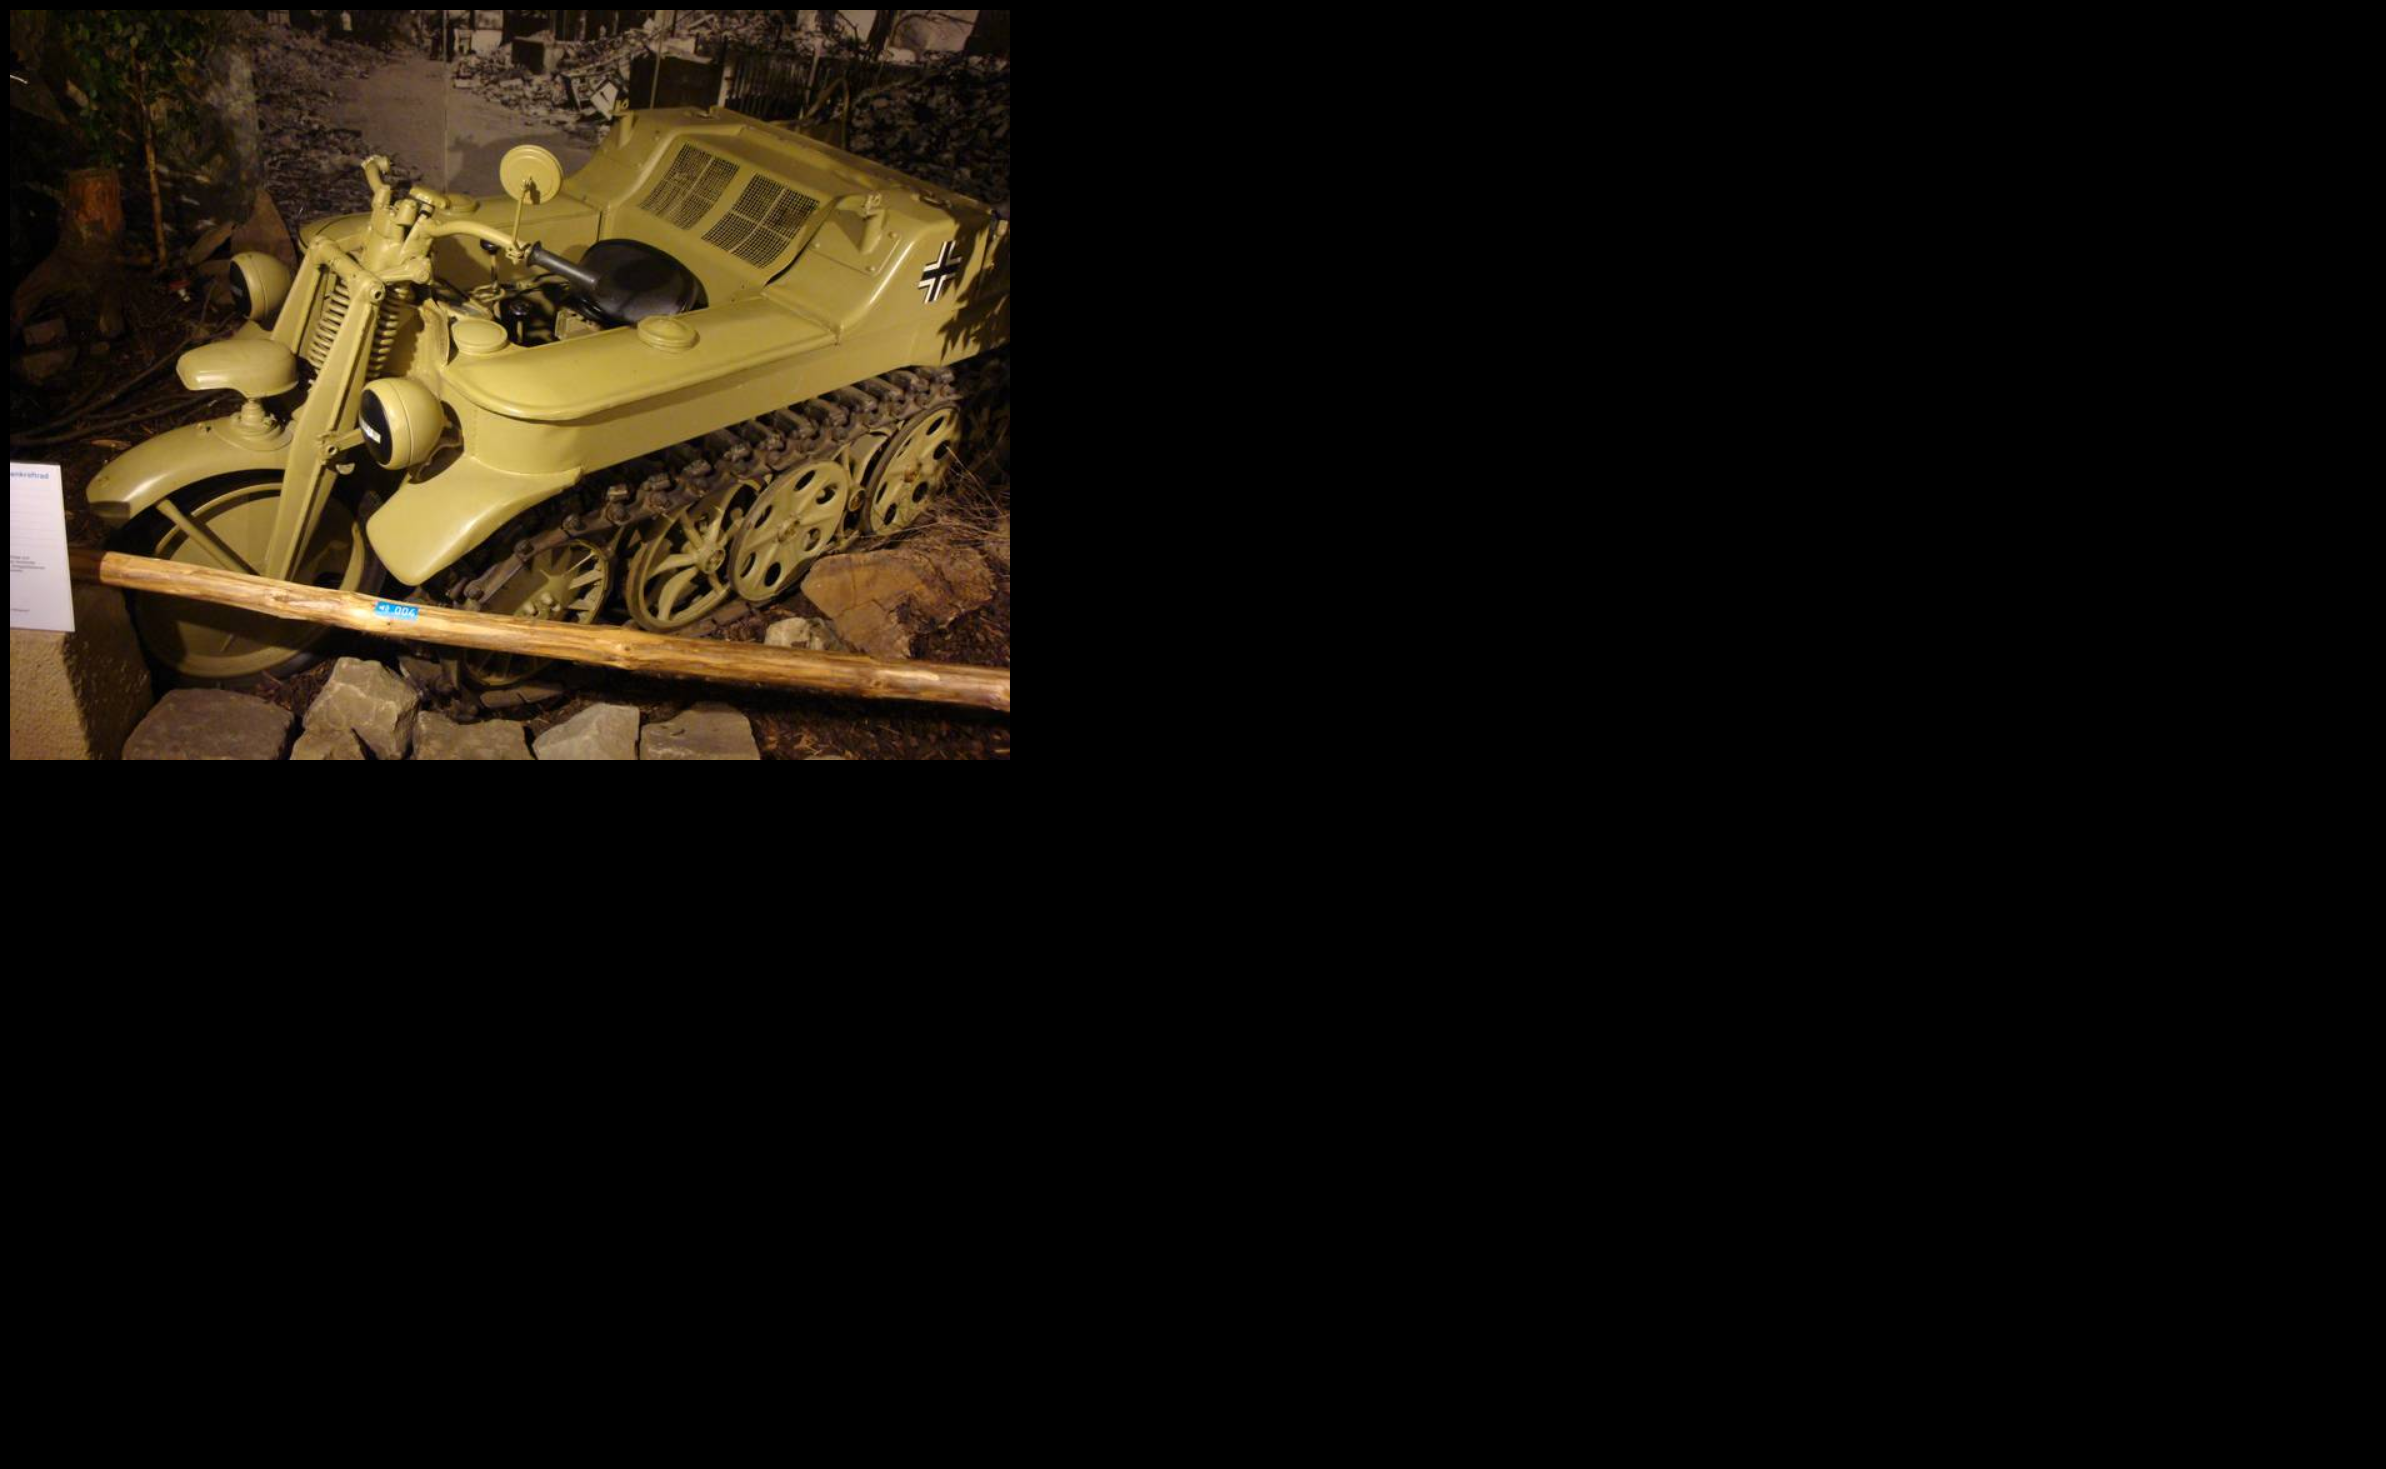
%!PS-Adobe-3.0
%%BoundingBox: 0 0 2386 1469
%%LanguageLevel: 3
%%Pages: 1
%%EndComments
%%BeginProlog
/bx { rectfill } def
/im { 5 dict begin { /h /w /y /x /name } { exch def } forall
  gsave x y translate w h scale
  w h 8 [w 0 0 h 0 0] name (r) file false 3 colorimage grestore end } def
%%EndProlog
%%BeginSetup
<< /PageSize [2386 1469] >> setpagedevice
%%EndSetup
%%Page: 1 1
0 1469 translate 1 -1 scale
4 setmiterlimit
0 setgray
0 0 2386 1469 bx
(image0.raw) 10 10 1000 750 im
showpage
%%EOF
